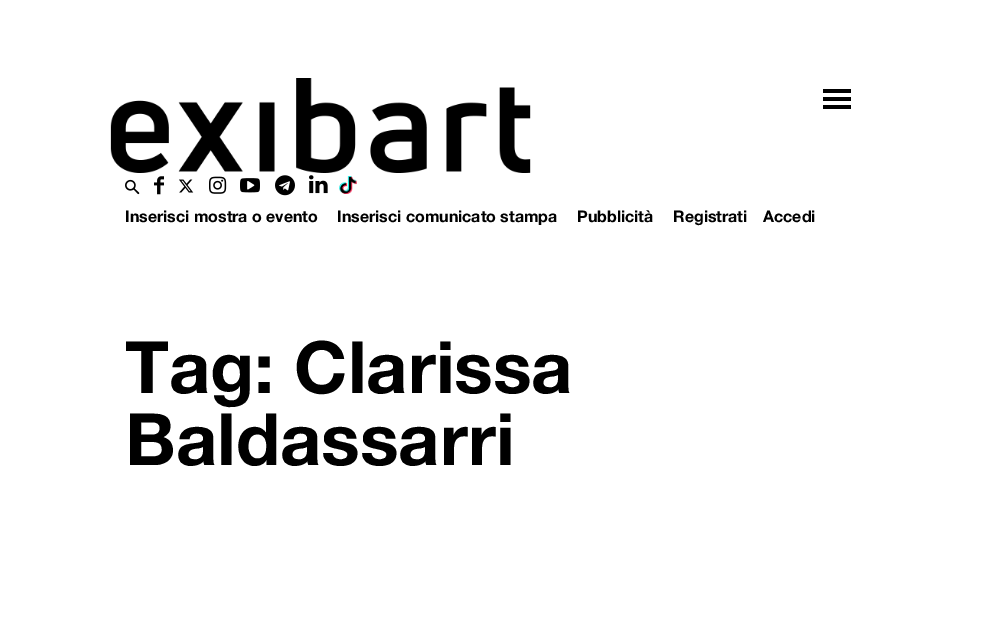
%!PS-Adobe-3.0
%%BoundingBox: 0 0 987 620
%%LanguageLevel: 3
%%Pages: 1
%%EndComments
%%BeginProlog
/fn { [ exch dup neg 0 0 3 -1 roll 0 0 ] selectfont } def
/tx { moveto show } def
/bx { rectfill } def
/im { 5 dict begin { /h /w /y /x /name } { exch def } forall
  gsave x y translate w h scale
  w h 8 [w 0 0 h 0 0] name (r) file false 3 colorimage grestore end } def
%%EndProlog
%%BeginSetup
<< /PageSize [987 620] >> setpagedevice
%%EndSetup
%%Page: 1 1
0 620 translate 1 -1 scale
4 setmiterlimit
1 setgray
0 0 987 620 bx
(image0.raw) 110 78 421 95 im
(image1.raw) 823 89 28 20 im
(image2.raw) 125 179 15 16 im
(image3.raw) 154 176 10 19 im
(image4.raw) 179 179 15 14 im
(image5.raw) 209 176 18 18 im
(image6.raw) 240 178 20 15 im
(image7.raw) 275 175 20 21 im
(image8.raw) 309 175 19 19 im
(image9.raw) 339 176 18 18 im
/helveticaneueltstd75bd-Bold 16 fn
0 setgray
(Inserisci mostra o evento) 125 222 tx
(Inserisci comunicato stampa) 337 222 tx
(Pubblicità) 577 222 tx
(Registrati) 673 222 tx
(Accedi) 763 222 tx
/helveticaneueltstd75bd-Bold 72 fn
(Tag: Clarissa) 125 393 tx
(Baldassarri) 125 465 tx
showpage
%%EOF
